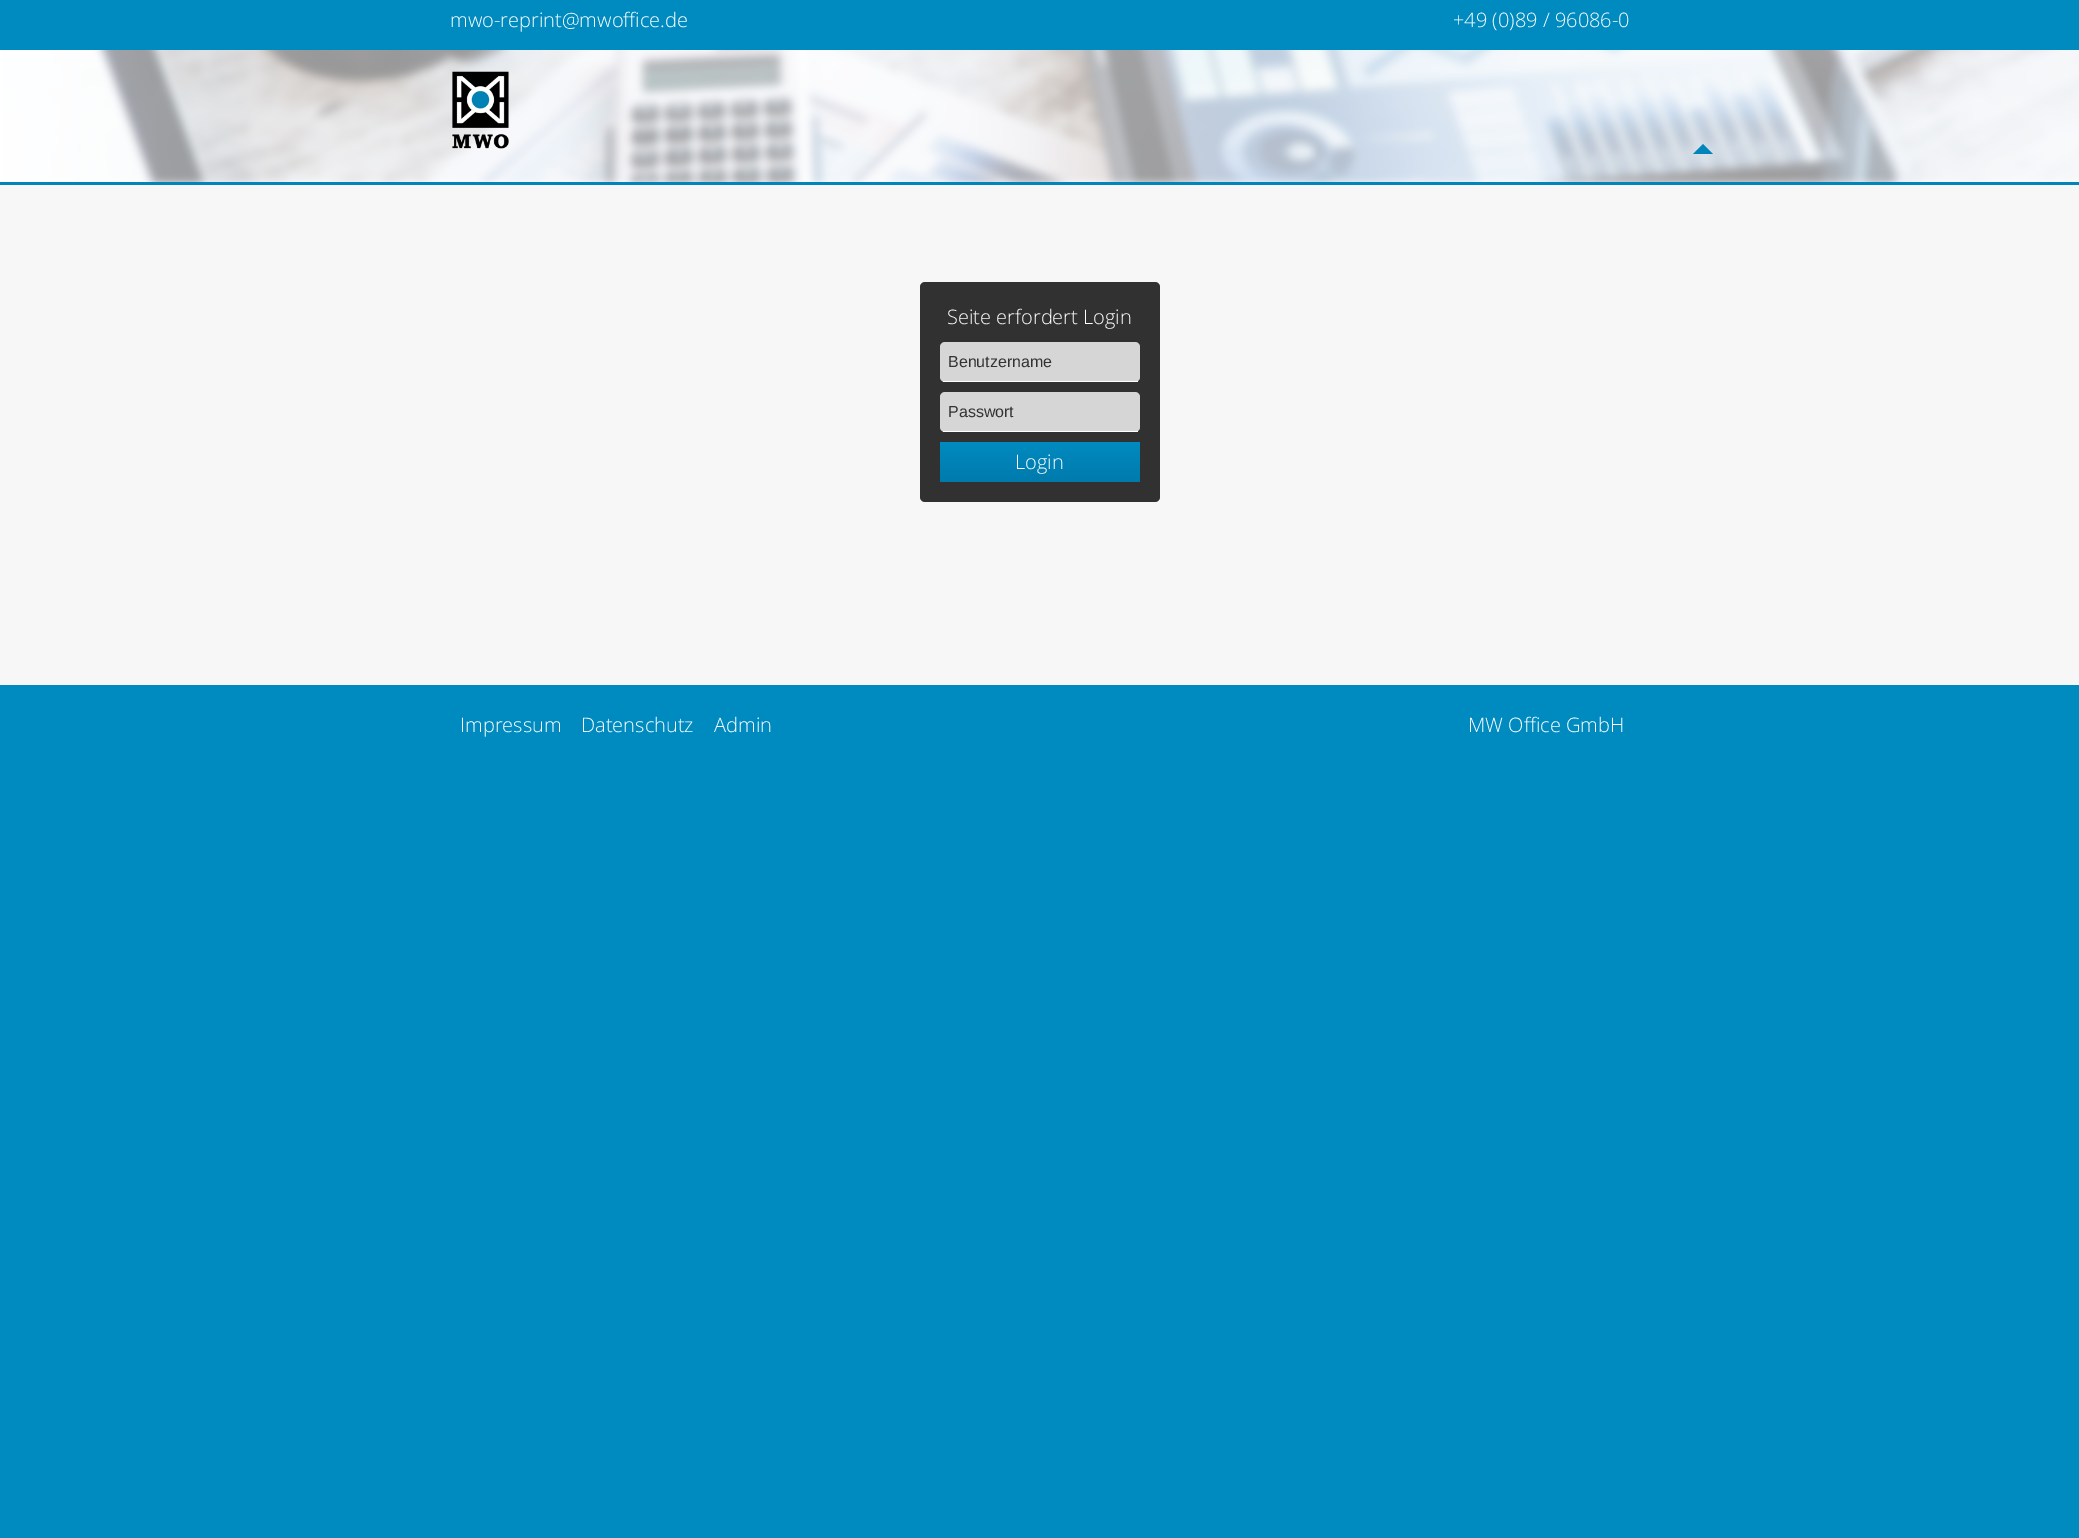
%!PS-Adobe-3.0
%%BoundingBox: 0 0 2079 1538
%%LanguageLevel: 3
%%Pages: 1
%%EndComments
%%BeginProlog
/m { moveto } bind def
/l { lineto } bind def
/h { closepath } bind def
/f { fill } bind def
/q { gsave } bind def
/Q { grestore } bind def
/fn { [ exch dup neg 0 0 3 -1 roll 0 0 ] selectfont } def
/tx { moveto show } def
/bx { rectfill } def
/rr { 5 dict begin { /r /h /w /y /x } { exch def } forall
  x r add y moveto x w add y 2 copy h add r arct x w add y h add x 1 index r arct
  x y h add x y r arct x y 2 copy exch w add exch r arct closepath end } def
/im { 5 dict begin { /h /w /y /x /name } { exch def } forall
  gsave x y translate w h scale
  w h 8 [w 0 0 h 0 0] name (r) file false 3 colorimage grestore end } def
%%EndProlog
%%BeginSetup
<< /PageSize [2079 1538] >> setpagedevice
%%EndSetup
%%Page: 1 1
0 1538 translate 1 -1 scale
4 setmiterlimit
0 0.545 0.753 setrgbcolor
0 0 2079 1538 bx
1 setgray
0 50 2079 132 bx
/OpenSans-Light 20 fn
(mwo-reprint@mwoffice.de) 450 27 tx
(+49 \(0\)89 / 96086-0) 1453 27 tx
(image1.raw) 2 50 2077 132 im
(image0.raw) 452 71 57 78 im
0 0.518 0.725 setrgbcolor
1713 154 m 1693 154 l 1703 144 l h f
0 182 2079 3 bx
0.969 setgray
0 185 2079 500 bx
0.192 setgray
920 282 240 220 5 rr f
1 setgray
(Seite erfordert Login) 947 324 tx
0.839 setgray
940 342 200 40 5 rr f
1 setgray
943 381 195 1 bx
/LiberationSans-Regular 16 fn
0.2 setgray
(Benutzername) 948 367 tx
0.839 setgray
940 392 200 40 5 rr f
1 setgray
943 431 195 1 bx
0.2 setgray
(Passwort) 948 417 tx
q 940 442 m 1140 442 l 1140 482 l 940 482 l h clip newpath
<< /ShadingType 2 /ColorSpace /DeviceRGB /Coords [1040 442 1040 482] /Extend [true true] /Function << /FunctionType 2 /Domain [0 1] /C0 [0 0.545 0.753] /C1 [0 0.478 0.678] /N 1 >> >> shfill Q
/OpenSans-Light 20 fn
1 setgray
(Login) 1015 469 tx
(Impressum) 460 732 tx
(Datenschutz) 581 732 tx
(Admin) 714 732 tx
(MW Office GmbH) 1468 732 tx
showpage
%%EOF
